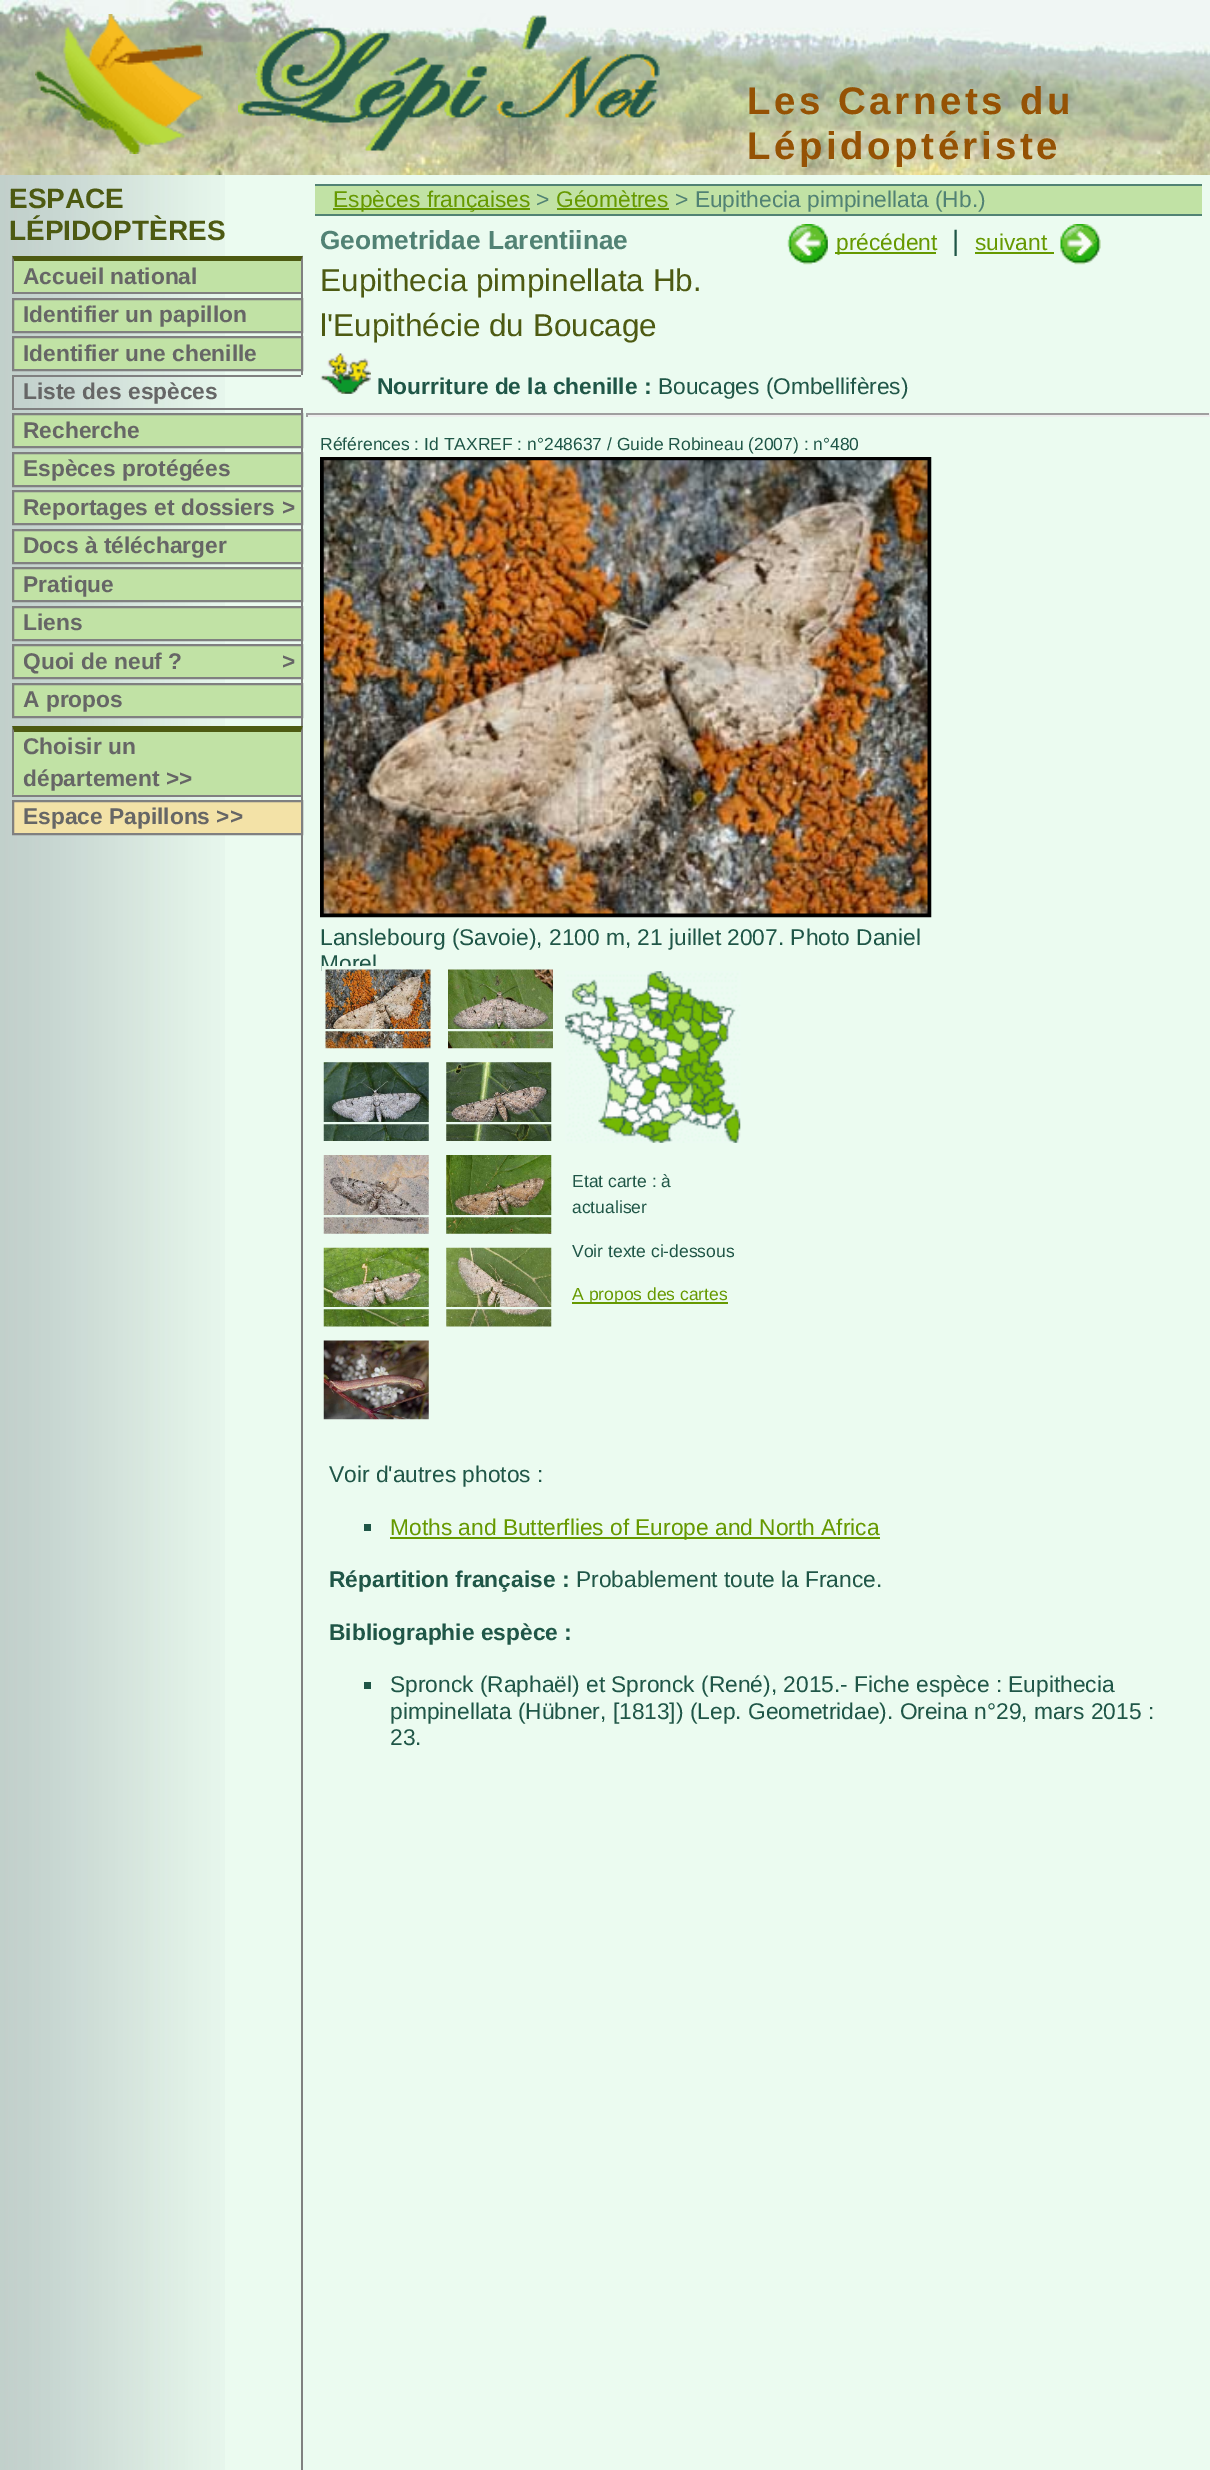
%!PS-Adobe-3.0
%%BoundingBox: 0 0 1210 2470
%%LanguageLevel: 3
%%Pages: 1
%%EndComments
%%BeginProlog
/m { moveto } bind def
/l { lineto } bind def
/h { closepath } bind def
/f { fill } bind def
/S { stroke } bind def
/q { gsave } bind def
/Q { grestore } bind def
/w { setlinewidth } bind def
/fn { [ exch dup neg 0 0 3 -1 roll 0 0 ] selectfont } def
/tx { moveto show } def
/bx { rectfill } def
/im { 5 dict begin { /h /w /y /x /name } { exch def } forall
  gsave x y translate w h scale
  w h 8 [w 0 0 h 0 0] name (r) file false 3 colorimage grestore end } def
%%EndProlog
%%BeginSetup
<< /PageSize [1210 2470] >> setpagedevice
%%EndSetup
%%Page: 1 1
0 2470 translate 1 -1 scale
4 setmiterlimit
0.922 0.984 0.941 setrgbcolor
0 0 1210 2470 bx
(image0.raw) 0 0 1210 175 im
(image1.raw) 35 14 168 140 im
(image2.raw) 238 15 422 136 im
/LiberationSans-Bold 38.5 fn
0.584 0.322 0.016 setrgbcolor
747 114 m 3.5 0 (Les Carnets du) ashow
747 159 m 3.5 0 (Lépidoptériste) ashow
(image3.raw) 0 175 225 2295 im
/LiberationSans-Bold 28 fn
0.302 0.353 0.071 setrgbcolor
(ESPACE) 9 208 tx
(LÉPIDOPTÈRES) 9 240 tx
0.502 setgray
301 256 2 2214 bx
0.757 0.886 0.647 setrgbcolor
14 261 287 31 bx
0.302 0.353 0.071 setrgbcolor
12 256 m 303 256 l 301 261 l 14 261 l h f
0.502 setgray
303 255.5 m 303 294 l 301 292 l 301 261 l h f
12 292 291 2 bx
12 294 m 12 255.5 l 14 261 l 14 292 l h f
/LiberationSans-Bold 22.75 fn
0.4 setgray
(Accueil national) 23 284 tx
0.757 0.886 0.647 setrgbcolor
13 299 m 302 299 l 302 332 l 13 332 l h q f Q
0.502 setgray
2 w
S
0.4 setgray
(Identifier un papillon) 23 322 tx
0.757 0.886 0.647 setrgbcolor
13 337 m 302 337 l 302 370 l 13 370 l h q f Q
0.502 setgray
S
0.4 setgray
(Identifier une chenille) 23 361 tx
0.502 setgray
12 375 291 2 bx
0.922 0.984 0.941 setrgbcolor
301 375 2 35 bx
0.502 setgray
12 408 291 2 bx
12 375 2 35 bx
0.4 setgray
(Liste des espèces) 23 399 tx
0.757 0.886 0.647 setrgbcolor
13 414 m 302 414 l 302 447 l 13 447 l h q f Q
0.502 setgray
S
0.4 setgray
(Recherche) 23 438 tx
0.757 0.886 0.647 setrgbcolor
13 453 m 302 453 l 302 486 l 13 486 l h q f Q
0.502 setgray
S
0.4 setgray
(Espèces protégées) 23 476 tx
0.757 0.886 0.647 setrgbcolor
13 491 m 302 491 l 302 524 l 13 524 l h q f Q
0.502 setgray
S
0.4 setgray
(Reportages et dossiers) 23 515 tx
(>) 282 515 tx
0.757 0.886 0.647 setrgbcolor
13 530 m 302 530 l 302 563 l 13 563 l h q f Q
0.502 setgray
S
0.4 setgray
(Docs à télécharger) 23 553 tx
0.757 0.886 0.647 setrgbcolor
13 568 m 302 568 l 302 601 l 13 601 l h q f Q
0.502 setgray
S
0.4 setgray
(Pratique) 23 592 tx
0.757 0.886 0.647 setrgbcolor
13 607 m 302 607 l 302 640 l 13 640 l h q f Q
0.502 setgray
S
0.4 setgray
(Liens) 23 630 tx
0.757 0.886 0.647 setrgbcolor
13 645 m 302 645 l 302 678 l 13 678 l h q f Q
0.502 setgray
S
0.4 setgray
(Quoi de neuf ?) 23 669 tx
(>) 282 669 tx
0.757 0.886 0.647 setrgbcolor
13 684 m 302 684 l 302 717 l 13 717 l h q f Q
0.502 setgray
S
0.4 setgray
(A propos) 23 707 tx
0.757 0.886 0.647 setrgbcolor
14 732 287 63 bx
0.302 0.353 0.071 setrgbcolor
12 726 m 303 726 l 301 732 l 14 732 l h f
0.502 setgray
303 726 m 303 796 l 301 794 l 301 732 l h f
12 795 291 2 bx
12 796 m 12 726 l 14 732 l 14 794 l h f
0.4 setgray
(Choisir un) 23 754 tx
(département >>) 23 786 tx
0.953 0.886 0.655 setrgbcolor
13 801 m 302 801 l 302 834 l 13 834 l h q f Q
0.502 setgray
S
0.4 setgray
(Espace Papillons >>) 23 824 tx
0.757 0.886 0.647 setrgbcolor
315 186 887 28 bx
0.318 0.51 0.455 setrgbcolor
315 184 887 2 bx
315 214 887 2 bx
0.4 0.6 0 setrgbcolor
333 208 197 2 bx
/LiberationSans-Regular 22.75 fn
(Espèces françaises) 333 207 tx
0.318 0.51 0.455 setrgbcolor
(>) 536 207 tx
0.4 0.6 0 setrgbcolor
(Géomètres) 556 207 tx
557 208 112 2 bx
0.318 0.51 0.455 setrgbcolor
(> Eupithecia pimpinellata \(Hb.\)) 675 207 tx
/LiberationSans-Bold 26.25 fn
(Geometridae Larentiinae) 320 249 tx
/LiberationSans-Regular 31.5 fn
0.302 0.353 0.071 setrgbcolor
(Eupithecia pimpinellata Hb.) 320 291 tx
(l'Eupithécie du Boucage) 320 336 tx
(image4.raw) 320 353 51 41 im
/LiberationSans-Bold 22.75 fn
0.122 0.337 0.278 setrgbcolor
(Nourriture de la chenille :) 377 394 tx
/LiberationSans-Regular 22.75 fn
(Boucages \(Ombellifères\)) 658 394 tx
(image5.raw) 787 224 41 41 im
0.4 0.6 0 setrgbcolor
835 252 101 2 bx
(précédent) 836 250 tx
/LiberationSans-Regular 28 fn
0.122 0.337 0.278 setrgbcolor
(|) 952 250 tx
/LiberationSans-Regular 22.75 fn
0.4 0.6 0 setrgbcolor
(suivant) 975 250 tx
975 252 79 2 bx
(image6.raw) 1060 224 41 41 im
0.624 setgray
306 413 904 2 bx
0.933 setgray
1209 413 1 4 bx
306 415 904 2 bx
0.624 setgray
306 413 2 4 bx
/LiberationSans-Regular 17.5 fn
0.122 0.337 0.278 setrgbcolor
(Références : Id TAXREF : n°248637 / Guide Robineau \(2007\) : n°480) 320 450 tx
0 setgray
4 w
322 459 607 456 rectstroke
(image7.raw) 323 460 605 454 im
/LiberationSans-Regular 22.75 fn
0.122 0.337 0.278 setrgbcolor
(Lanslebourg \(Savoie\), 2100 m, 21 juillet 2007. Photo Daniel) 320 945 tx
(Morel) 320 971 tx
0.922 0.984 0.941 setrgbcolor
324 968 108 82 rectstroke
(image8.raw) 325 969 106 80 im
(image9.raw) 448 969 105 80 im
2 w
321 1030 238 121 rectstroke
(image10.raw) 323 1062 106 79 im
(image11.raw) 446 1062 106 79 im
321 1123 236 120 rectstroke
(image12.raw) 323 1155 106 79 im
(image13.raw) 446 1155 106 79 im
321 1216 236 120 rectstroke
(image14.raw) 323 1247 106 80 im
(image15.raw) 446 1247 106 80 im
321 1308 236 121 rectstroke
(image16.raw) 323 1340 106 80 im
(image17.raw) 565 971 176 172 im
/LiberationSans-Regular 17.5 fn
0.122 0.337 0.278 setrgbcolor
(Etat carte : à) 572 1187 tx
(actualiser) 572 1213 tx
(Voir texte ci-dessous) 572 1257 tx
0.4 0.6 0 setrgbcolor
572 1302 156 2 bx
(A propos des cartes) 572 1300 tx
/LiberationSans-Regular 22.75 fn
0.122 0.337 0.278 setrgbcolor
(Voir d'autres photos :) 329 1482 tx
364 1524 7 7 bx
0.4 0.6 0 setrgbcolor
390 1537 490 2 bx
(Moths and Butterflies of Europe and North Africa) 390 1535 tx
/LiberationSans-Bold 22.75 fn
0.122 0.337 0.278 setrgbcolor
(Répartition française :) 329 1587 tx
/LiberationSans-Regular 22.75 fn
(Probablement toute la France.) 576 1587 tx
/LiberationSans-Bold 22.75 fn
(Bibliographie espèce :) 329 1640 tx
364 1682 7 7 bx
/LiberationSans-Regular 22.75 fn
(Spronck \(Raphaël\) et Spronck \(René\), 2015.- Fiche espèce : Eupithecia) 390 1692 tx
(pimpinellata \(Hübner, [1813]\) \(Lep. Geometridae\). Oreina n°29, mars 2015 :) 390 1719 tx
(23.) 390 1745 tx
showpage
%%EOF
